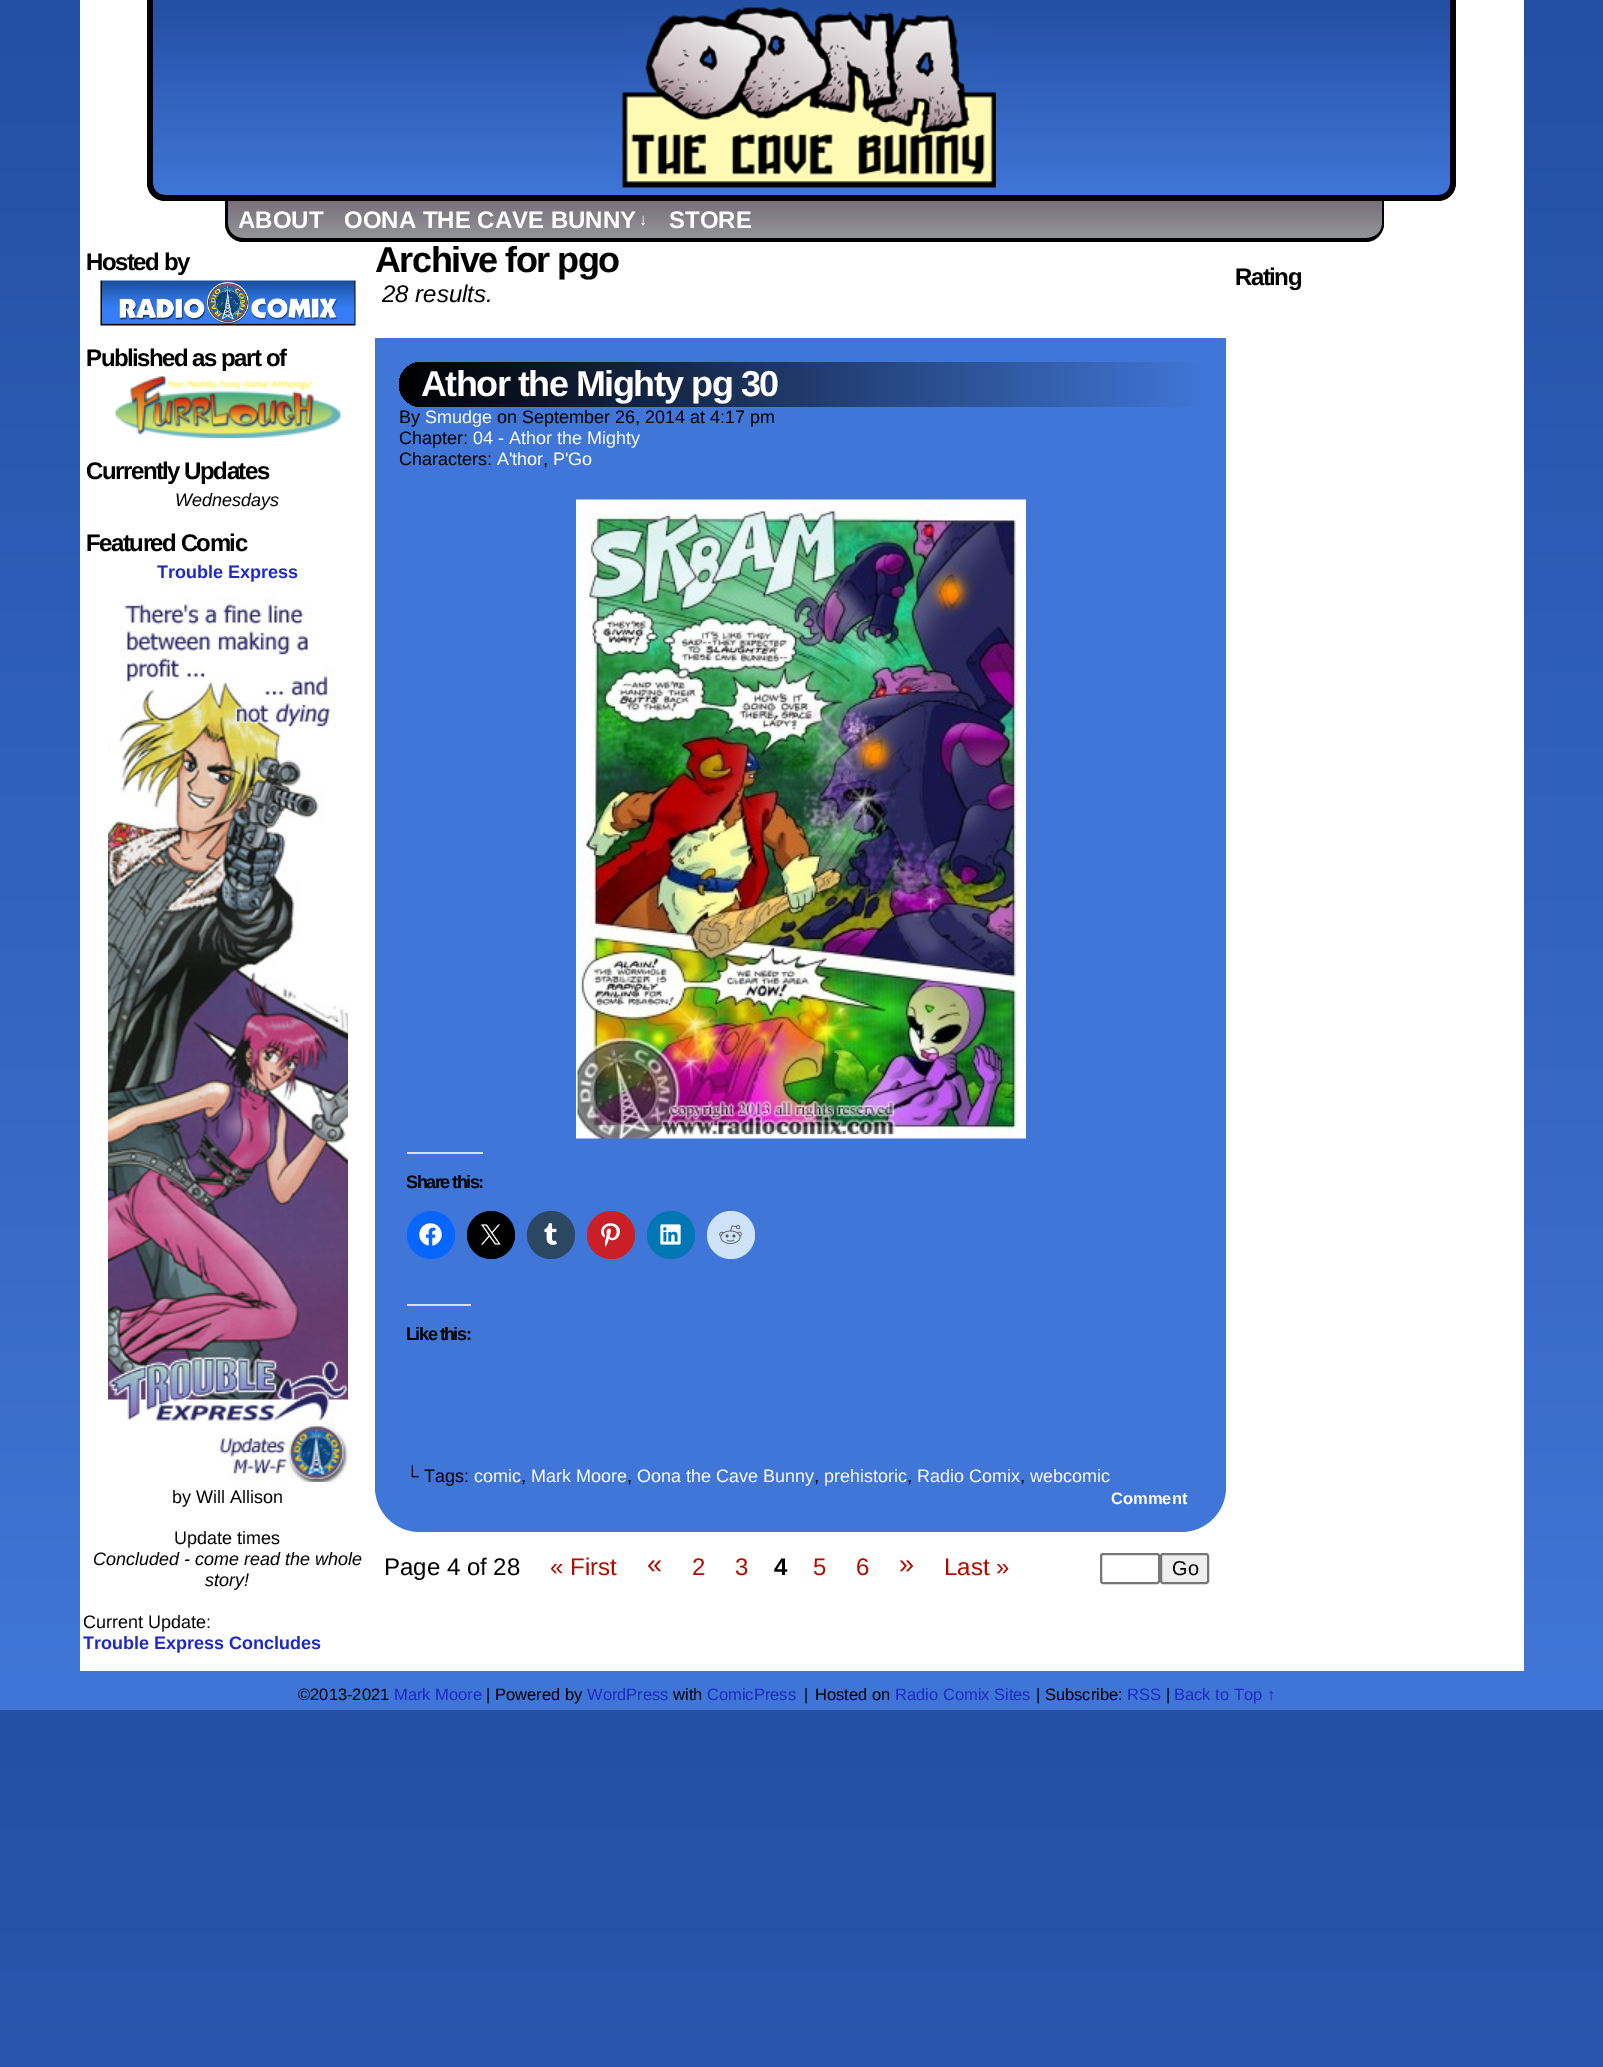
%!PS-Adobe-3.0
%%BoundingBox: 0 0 1603 2067
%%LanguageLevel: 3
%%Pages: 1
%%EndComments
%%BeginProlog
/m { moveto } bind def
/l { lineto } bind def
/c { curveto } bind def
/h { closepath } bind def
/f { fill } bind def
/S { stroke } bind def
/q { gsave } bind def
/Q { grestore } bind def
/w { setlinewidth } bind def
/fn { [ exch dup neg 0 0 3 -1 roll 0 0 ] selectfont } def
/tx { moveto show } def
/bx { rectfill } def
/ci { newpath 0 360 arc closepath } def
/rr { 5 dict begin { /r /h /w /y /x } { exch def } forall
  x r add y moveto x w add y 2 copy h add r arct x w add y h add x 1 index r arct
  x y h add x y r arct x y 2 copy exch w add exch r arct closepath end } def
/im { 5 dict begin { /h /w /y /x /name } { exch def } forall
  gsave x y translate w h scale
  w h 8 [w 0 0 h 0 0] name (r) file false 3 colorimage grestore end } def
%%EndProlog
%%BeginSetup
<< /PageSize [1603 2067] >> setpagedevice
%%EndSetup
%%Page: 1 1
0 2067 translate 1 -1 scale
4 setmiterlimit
1 setgray
0 0 1603 2067 bx
q 0 0 m 1603 0 l 1603 1710 l 0 1710 l h clip newpath
<< /ShadingType 2 /ColorSpace /DeviceRGB /Coords [802 0 802 1710] /Extend [true true] /Function << /FunctionType 2 /Domain [0 1] /C0 [0.137 0.31 0.643] /C1 [0.251 0.463 0.843] /N 1 >> >> shfill Q
q 0 1710 m 1603 1710 l 1603 2067 l 0 2067 l h clip newpath
<< /ShadingType 2 /ColorSpace /DeviceRGB /Coords [802 1710 802 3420] /Extend [true true] /Function << /FunctionType 2 /Domain [0 1] /C0 [0.137 0.31 0.643] /C1 [0.251 0.463 0.843] /N 1 >> >> shfill Q
80 0 1444 1671 bx
q 153 0 m 1451 0 l 1451 183 l 1451 189.5 1445.5 195 1439 195 c 165 195 l 158.5 195 153 189.5 153 183 c h clip newpath
<< /ShadingType 2 /ColorSpace /DeviceRGB /Coords [802 0 802 195] /Extend [true true] /Function << /FunctionType 2 /Domain [0 1] /C0 [0.137 0.31 0.643] /C1 [0.251 0.463 0.843] /N 1 >> >> shfill Q
0 setgray
147 0 m 1456 0 l 1456 183 l 1456 193 1448 201 1438 201 c 165 201 l 155 201 147 193 147 183 c h 153 0 m 1450 0 l 1450 183 l 1450 190 1445 195 1438 195 c 165 195 l 158 195 153 190 153 183 c h eofill
(image0.raw) 622 7 374 181 im
q 228 201 m 1382 201 l 1382 224 l 1382 232.5 1375.5 239 1367 239 c 243 239 l 234.5 239 228 232.5 228 224 c h clip newpath
<< /ShadingType 2 /ColorSpace /DeviceRGB /Coords [805 201 805 239] /Extend [true true] /Function << /FunctionType 2 /Domain [0 1] /C0 [0.475 0.435 0.486] /C1 [0.576 0.592 0.596] /N 1 >> >> shfill Q
225 201 m 1384 201 l 1384 224 l 1384 233 1376 242 1366 242 c 243 242 l 233 242 225 233 225 224 c h 228 201 m 1382 201 l 1382 224 l 1382 232 1375 238 1366 238 c 243 238 l 235 238 228 232 228 224 c h eofill
/LiberationSans-Bold 24 fn
1 setgray
(ABOUT) 238 228 tx
(OONA THE CAVE BUNNY) 344 228 tx
/LiberationSans-Bold 16.5 fn
(↓) 639 225 tx
/LiberationSans-Bold 24 fn
(STORE) 669 228 tx
0 setgray
86 270 m -1.5 0 (Hosted by) ashow
(image1.raw) 100 280 256 46 im
86 366 m -1.5 0 (Published as part of) ashow
(image2.raw) 115 376 226 62 im
86 479 m -1.5 0 (Currently Updates) ashow
/LiberationSans-Italic 18 fn
(Wednesdays) 175 506 tx
/LiberationSans-Bold 24 fn
86 551 m -1.5 0 (Featured Comic) ashow
/LiberationSans-Bold 18 fn
0.122 0.165 0.769 setrgbcolor
(Trouble Express) 157 578 tx
(image3.raw) 108 594 240 888 im
/LiberationSans-Regular 18 fn
0 setgray
(by Will Allison) 172 1503 tx
(Update times) 174 1544 tx
/LiberationSans-Italic 18 fn
(Concluded - come read the whole) 93 1565 tx
(story!) 205 1586 tx
/LiberationSans-Regular 18 fn
(Current Update:) 83 1628 tx
/LiberationSans-Bold 18 fn
0.122 0.165 0.769 setrgbcolor
(Trouble Express Concludes) 83 1649 tx
/LiberationSans-Bold 36 fn
0 setgray
375 272 m -1.5 0 (Archive for pgo) ashow
/LiberationSans-Italic 24 fn
(28 results.) 382 302 tx
0.251 0.463 0.843 setrgbcolor
375 338 m 1226 338 l 1226 1487 l 1226 1512 1206 1532 1181 1532 c 420 1532 l 395 1532 375 1512 375 1487 c h f
q 421.5 362 m 1202 362 l 1202 407 l 421.5 407 l 409 407 399 397 399 384.5 c 399 372 409 362 421.5 362 c h clip newpath
<< /ShadingType 2 /ColorSpace /DeviceRGB /Coords [399 384 1202 384] /Extend [true true] /Function << /FunctionType 2 /Domain [0 1] /C0 [0 0 0] /C1 [0.251 0.463 0.843] /N 1 >> >> shfill Q
/LiberationSans-Bold 36 fn
1 setgray
421 396 m -1.5 0 (Athor the Mighty pg 30) ashow
/LiberationSans-Regular 18 fn
0 setgray
(By) 399 423 tx
1 setgray
(Smudge) 425 423 tx
0 setgray
(on September 26, 2014 at 4:17 pm) 497 423 tx
(Chapter:) 399 444 tx
1 setgray
(04 - Athor the Mighty) 473 444 tx
0 setgray
(Characters:) 399 465 tx
1 setgray
(A'thor) 497 465 tx
0 setgray
(,) 543 465 tx
1 setgray
(P'Go) 553 465 tx
(image4.raw) 576 499 450 640 im
0.863 0.863 0.871 setrgbcolor
407 1152 76 2 bx
/LiberationSans-Bold 18 fn
0 setgray
406 1188 m -1.5 0 (Share this:) ashow
0.031 0.4 1 setrgbcolor
431 1235 24 ci f
(image5.raw) 419 1223 23 23 im
0 setgray
491 1235 24 ci f
(image6.raw) 481 1224 20 21 im
0.173 0.278 0.384 setrgbcolor
551 1235 24 ci f
(image7.raw) 544 1223 13 22 im
0.792 0.122 0.153 setrgbcolor
611 1235 24 ci f
(image8.raw) 601 1223 19 24 im
0 0.467 0.71 setrgbcolor
671 1235 24 ci f
(image9.raw) 660 1224 21 21 im
0.808 0.89 0.973 setrgbcolor
731 1235 24 ci f
(image10.raw) 719 1225 23 19 im
0.863 0.863 0.871 setrgbcolor
407 1304 64 2 bx
0 setgray
406 1340 m -1.5 0 (Like this:) ashow
/LiberationSans-Regular 18 fn
(└ Tags:) 406 1482 tx
1 setgray
(comic) 474 1482 tx
0 setgray
(,) 521 1482 tx
1 setgray
(Mark Moore) 531 1482 tx
0 setgray
(,) 627 1482 tx
1 setgray
(Oona the Cave Bunny) 637 1482 tx
0 setgray
(,) 814 1482 tx
1 setgray
(prehistoric) 824 1482 tx
0 setgray
(,) 907 1482 tx
1 setgray
(Radio Comix) 917 1482 tx
0 setgray
(,) 1020 1482 tx
1 setgray
(webcomic) 1030 1482 tx
/LiberationSans-Bold 16.5 fn
(Comment) 1111 1504 tx
/LiberationSans-Regular 24 fn
0 setgray
(Page 4 of 28) 384 1575 tx
0.69 0.043 0 setrgbcolor
(« First) 550 1575 tx
/LiberationSans-Regular 27 fn
(«) 647 1573 tx
/LiberationSans-Regular 24 fn
(2) 692 1575 tx
(3) 735 1575 tx
/LiberationSans-Bold 24 fn
0 setgray
(4) 774 1575 tx
/LiberationSans-Regular 24 fn
0.69 0.043 0 setrgbcolor
(5) 813 1575 tx
(6) 856 1575 tx
/LiberationSans-Regular 27 fn
(») 899 1573 tx
/LiberationSans-Regular 24 fn
(Last ») 944 1575 tx
0.463 setgray
2 w
1101 1554 58 29 2 rr S
0.937 setgray
1161 1554 47 29 2 rr q f Q
0.463 setgray
S
/LiberationSans-Regular 20 fn
0 setgray
(Go) 1172 1575 tx
/LiberationSans-Bold 24 fn
1235 285 m -1.5 0 (Rating) ashow
/LiberationSans-Regular 16.5 fn
(©2013-2021) 298 1700 tx
0.122 0.165 0.769 setrgbcolor
(Mark Moore) 394 1700 tx
0 setgray
(| Powered by) 486 1700 tx
0.122 0.165 0.769 setrgbcolor
(WordPress) 587 1700 tx
0 setgray
(with) 673 1700 tx
0.122 0.165 0.769 setrgbcolor
(ComicPress) 707 1700 tx
0 setgray
(|) 804 1700 tx
(Hosted on) 815 1700 tx
0.122 0.165 0.769 setrgbcolor
(Radio Comix Sites) 895 1700 tx
0 setgray
(| Subscribe:) 1036 1700 tx
0.122 0.165 0.769 setrgbcolor
(RSS) 1127 1700 tx
0 setgray
(|) 1166 1700 tx
0.122 0.165 0.769 setrgbcolor
(Back to Top ↑) 1174 1700 tx
showpage
%%EOF
